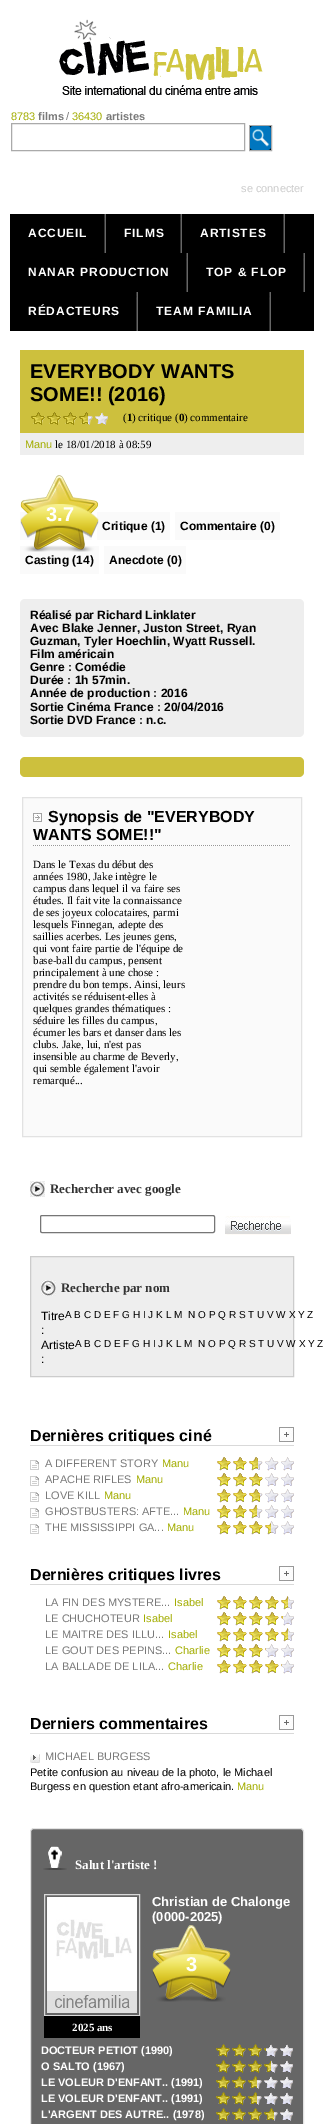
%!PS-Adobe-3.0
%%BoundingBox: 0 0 324 2124
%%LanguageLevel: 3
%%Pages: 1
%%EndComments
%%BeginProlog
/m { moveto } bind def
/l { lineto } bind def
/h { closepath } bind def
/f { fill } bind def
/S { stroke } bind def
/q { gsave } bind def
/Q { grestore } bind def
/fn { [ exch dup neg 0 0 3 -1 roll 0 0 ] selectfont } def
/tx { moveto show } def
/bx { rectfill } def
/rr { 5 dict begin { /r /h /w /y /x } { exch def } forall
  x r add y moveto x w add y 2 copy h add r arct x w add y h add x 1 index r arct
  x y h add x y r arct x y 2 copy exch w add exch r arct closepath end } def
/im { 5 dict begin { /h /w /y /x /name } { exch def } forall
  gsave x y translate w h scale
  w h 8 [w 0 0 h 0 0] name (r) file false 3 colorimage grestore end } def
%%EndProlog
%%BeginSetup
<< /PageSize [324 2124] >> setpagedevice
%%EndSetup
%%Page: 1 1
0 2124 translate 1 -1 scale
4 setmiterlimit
1 setgray
0 0 324 2124 bx
(image0.raw) 59 19 204 76 im
/LiberationSans-Regular 11 fn
0.639 0.678 0 setrgbcolor
(8783) 11 120 tx
/LiberationSans-Bold 11 fn
0.475 setgray
(films) 38 120 tx
/LiberationSans-Regular 11 fn
(/) 66 120 tx
0.639 0.678 0 setrgbcolor
(36430) 72 120 tx
/LiberationSans-Bold 11 fn
0.475 setgray
(artistes) 106 120 tx
0.667 setgray
11.5 123.5 233 27 rectstroke
249.5 125.5 22 25 rectstroke
(image1.raw) 250 126 21 24 im
/LiberationSans-Regular 11 fn
0.8 setgray
(se connecter) 241 192 tx
0 setgray
10 214 304 117 bx
(image2.raw) 104 214 2 39 im
/LiberationSans-Bold 12 fn
1 setgray
28 237 m 0.9 0 (ACCUEIL) ashow
(image2.raw) 180 214 2 39 im
124 237 m 0.9 0 (FILMS) ashow
(image2.raw) 283 214 2 39 im
200 237 m 0.9 0 (ARTISTES) ashow
(image2.raw) 186 253 2 39 im
28 276 m 0.9 0 (NANAR PRODUCTION) ashow
(image2.raw) 303 253 2 39 im
206 276 m 0.9 0 (TOP & FLOP) ashow
(image2.raw) 136 292 2 39 im
28 315 m 0.9 0 (RÉDACTEURS) ashow
(image2.raw) 269 292 2 39 im
156 315 m 0.9 0 (TEAM FAMILIA) ashow
0.804 0.753 0.239 setrgbcolor
20 350 284 83 bx
/LiberationSans-Bold 20 fn
0 setgray
(EVERYBODY WANTS) 30 378 tx
(SOME!! \(2016\)) 30 401 tx
(image3.raw) 31 412 77 13 im
(image4.raw) 31 412 57 13 im
/LiberationSerif-Regular 11 fn
(\() 123 421 tx
/LiberationSerif-Bold 11 fn
(1) 127 421 tx
/LiberationSerif-Regular 11 fn
(\) critique \() 132 421 tx
/LiberationSerif-Bold 11 fn
(0) 179 421 tx
/LiberationSerif-Regular 11 fn
(\) commentaire) 184 421 tx
0.933 setgray
20 433 284 22 bx
/LiberationSans-Regular 11 fn
0.639 0.678 0 setrgbcolor
(Manu) 25 448 tx
/LiberationSerif-Regular 11 fn
0 setgray
(le 18/01/2018 à 08:59) 55 448 tx
0.98 setgray
20 512 72 28 bx
97 512 73 28 bx
20 546 79 28 bx
(image5.raw) 20 475 79 77 im
/LiberationSans-Bold 20 fn
1 setgray
(3.7) 46 521 tx
/LiberationSans-Bold 12 fn
0 setgray
(Critique \(1\)) 102 530 tx
0.98 setgray
175 512 105 28 bx
0 setgray
(Commentaire \(0\)) 180 530 tx
(Casting \(14\)) 25 564 tx
0.98 setgray
104 546 82 28 bx
0 setgray
(Anecdote \(0\)) 109 564 tx
0.933 setgray
20 599 284 138 5 rr f
0 setgray
(Réalisé par Richard Linklater) 30 619 tx
(Avec Blake Jenner, Juston Street, Ryan) 30 632 tx
(Guzman, Tyler Hoechlin, Wyatt Russell.) 30 645 tx
(Film américain) 30 658 tx
(Genre : Comédie) 30 671 tx
(Durée : 1h 57min.) 30 684 tx
(Année de production : 2016) 30 697 tx
(Sortie Cinéma France : 20/04/2016) 30 711 tx
(Sortie DVD France : n.c.) 30 724 tx
0.804 0.753 0.239 setrgbcolor
20 757 284 20 5 rr f
0.98 setgray
22.5 797.5 m 301.5 797.5 l 301.5 1136.5 l 22.5 1136.5 l h q f Q
0.886 setgray
S
(image6.raw) 33 813 9 9 im
/LiberationSans-Bold 16 fn
0 setgray
(Synopsis de "EVERYBODY) 48 822 tx
(WANTS SOME!!") 33 840 tx
(image7.raw) 33 845 258 1 im
/LiberationSerif-Regular 11 fn
(Dans le Texas du début des) 33 868 tx
(années 1980, Jake intègre le) 33 880 tx
(campus dans lequel il va faire ses) 33 892 tx
(études. Il fait vite la connaissance) 33 904 tx
(de ses joyeux colocataires, parmi) 33 916 tx
(lesquels Finnegan, adepte des) 33 928 tx
(saillies acerbes. Les jeunes gens,) 33 940 tx
(qui vont faire partie de l'équipe de) 33 952 tx
(base-ball du campus, pensent) 33 964 tx
(principalement à une chose :) 33 976 tx
(prendre du bon temps. Ainsi, leurs) 33 988 tx
(activités se réduisent-elles à) 33 1000 tx
(quelques grandes thématiques :) 33 1012 tx
(séduire les filles du campus,) 33 1024 tx
(écumer les bars et danser dans les) 33 1036 tx
(clubs. Jake, lui, n'est pas) 33 1048 tx
(insensible au charme de Beverly,) 33 1060 tx
(qui semble également l'avoir) 33 1072 tx
(remarqué...) 33 1084 tx
(image8.raw) 30 1181 15 16 im
/LiberationSerif-Bold 13 fn
0.2 setgray
(Rechercher avec google) 50 1193 tx
0.463 setgray
40.5 1215.5 174 17 1.5 rr S
(image9.raw) 225 1216 66 19 im
0.933 setgray
30.5 1256.5 m 293.5 1256.5 l 293.5 1376.5 l 30.5 1376.5 l h q f Q
0.8 setgray
S
(image8.raw) 41 1280 15 16 im
0.2 setgray
(Recherche par nom) 61 1292 tx
/LiberationSans-Regular 12 fn
0 setgray
(Titre) 41 1320 tx
(:) 41 1334 tx
/LiberationSans-Regular 10 fn
(A B C D E F G H I J K L M) 65 1318 tx
(N O P Q R S T U V W X Y Z) 188 1318 tx
/LiberationSans-Regular 12 fn
(Artiste) 41 1349 tx
(:) 41 1363 tx
/LiberationSans-Regular 10 fn
(A B C D E F G H I J K L M) 75 1347 tx
(N O P Q R S T U V W X Y Z) 198 1347 tx
/LiberationSans-Bold 16 fn
(Dernières critiques ciné) 30 1441 tx
(image10.raw) 279 1427 15 15 im
0.851 setgray
30 1445 264 1 bx
(image11.raw) 30 1460 9 10 im
/LiberationSans-Regular 11 fn
0.475 setgray
(A DIFFERENT STORY) 45 1467 tx
0.639 0.678 0 setrgbcolor
(Manu) 162 1467 tx
(image12.raw) 217 1457 77 14 im
(image13.raw) 217 1457 41 13 im
(image11.raw) 30 1476 9 10 im
0.475 setgray
(APACHE RIFLES) 45 1483 tx
0.639 0.678 0 setrgbcolor
(Manu) 136 1483 tx
(image12.raw) 217 1473 77 14 im
(image14.raw) 217 1473 46 13 im
(image11.raw) 30 1492 9 10 im
0.475 setgray
(LOVE KILL) 45 1499 tx
0.639 0.678 0 setrgbcolor
(Manu) 104 1499 tx
(image12.raw) 217 1489 77 14 im
(image15.raw) 217 1489 43 13 im
(image11.raw) 30 1508 9 10 im
0.475 setgray
(GHOSTBUSTERS: AFTE...) 45 1515 tx
0.639 0.678 0 setrgbcolor
(Manu) 183 1515 tx
(image12.raw) 217 1505 77 14 im
(image16.raw) 217 1505 40 13 im
(image11.raw) 30 1524 9 10 im
0.475 setgray
(THE MISSISSIPPI GA...) 45 1531 tx
0.639 0.678 0 setrgbcolor
(Manu) 167 1531 tx
(image12.raw) 217 1521 77 14 im
(image17.raw) 217 1521 54 13 im
/LiberationSans-Bold 16 fn
0 setgray
(Dernières critiques livres) 30 1580 tx
(image10.raw) 279 1566 15 15 im
0.851 setgray
30 1584 264 1 bx
/LiberationSans-Regular 11 fn
0.475 setgray
(LA FIN DES MYSTERE...) 45 1606 tx
0.639 0.678 0 setrgbcolor
(Isabel) 174 1606 tx
(image12.raw) 217 1596 77 14 im
(image18.raw) 217 1596 71 13 im
0.475 setgray
(LE CHUCHOTEUR) 45 1622 tx
0.639 0.678 0 setrgbcolor
(Isabel) 143 1622 tx
(image12.raw) 217 1612 77 14 im
(image19.raw) 217 1612 66 13 im
0.475 setgray
(LE MAITRE DES ILLU...) 45 1638 tx
0.639 0.678 0 setrgbcolor
(Isabel) 168 1638 tx
(image12.raw) 217 1628 77 14 im
(image18.raw) 217 1628 71 13 im
0.475 setgray
(LE GOUT DES PEPINS...) 45 1654 tx
0.639 0.678 0 setrgbcolor
(Charlie) 175 1654 tx
(image12.raw) 217 1644 77 14 im
(image20.raw) 217 1644 49 13 im
0.475 setgray
(LA BALLADE DE LILA...) 45 1670 tx
0.639 0.678 0 setrgbcolor
(Charlie) 168 1670 tx
(image12.raw) 217 1660 77 14 im
(image21.raw) 217 1660 65 13 im
/LiberationSans-Bold 16 fn
0 setgray
(Derniers commentaires) 30 1729 tx
(image10.raw) 279 1715 15 15 im
0.851 setgray
30 1733 264 1 bx
(image22.raw) 30 1754 10 9 im
/LiberationSans-Regular 11 fn
0.475 setgray
(MICHAEL BURGESS) 45 1760 tx
0 setgray
(Petite confusion au niveau de la photo, le Michael) 30 1776 tx
(Burgess en question etant afro-americain.) 30 1790 tx
0.639 0.678 0 setrgbcolor
(Manu) 237 1790 tx
0.4 setgray
30.5 1828.5 273 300 3.5 rr q f Q
0.886 setgray
S
(image23.raw) 43 1846 24 24 im
/LiberationSerif-Bold 13 fn
1 setgray
(Salut l'artiste !) 75 1869 tx
/LiberationSans-Bold 13 fn
(Christian de Chalonge) 152 1906 tx
(\(0000-2025\)) 152 1921 tx
(image24.raw) 152 1925 79 77 im
/LiberationSans-Bold 20 fn
(3) 186 1971 tx
0.851 setgray
44.5 1894.5 95 121 rectstroke
(image25.raw) 47 1897 90 116 im
0 setgray
44 2016 96 22 bx
/LiberationSerif-Bold 11 fn
1 setgray
(2025 ans) 72 2031 tx
/LiberationSans-Bold 11 fn
(DOCTEUR PETIOT \(1990\)) 41 2054 tx
(image26.raw) 216 2044 77 13 im
(image27.raw) 216 2044 50 13 im
(O SALTO \(1967\)) 41 2070 tx
(image26.raw) 216 2060 77 13 im
(image28.raw) 216 2060 55 13 im
(LE VOLEUR D'ENFANT.. \(1991\)) 41 2086 tx
(image26.raw) 216 2076 77 13 im
(image29.raw) 216 2076 41 13 im
(LE VOLEUR D'ENFANT.. \(1991\)) 41 2102 tx
(image26.raw) 216 2092 77 13 im
(image29.raw) 216 2092 41 13 im
(L'ARGENT DES AUTRE.. \(1978\)) 41 2118 tx
(image26.raw) 216 2108 77 13 im
(image30.raw) 216 2108 58 13 im
showpage
%%EOF
